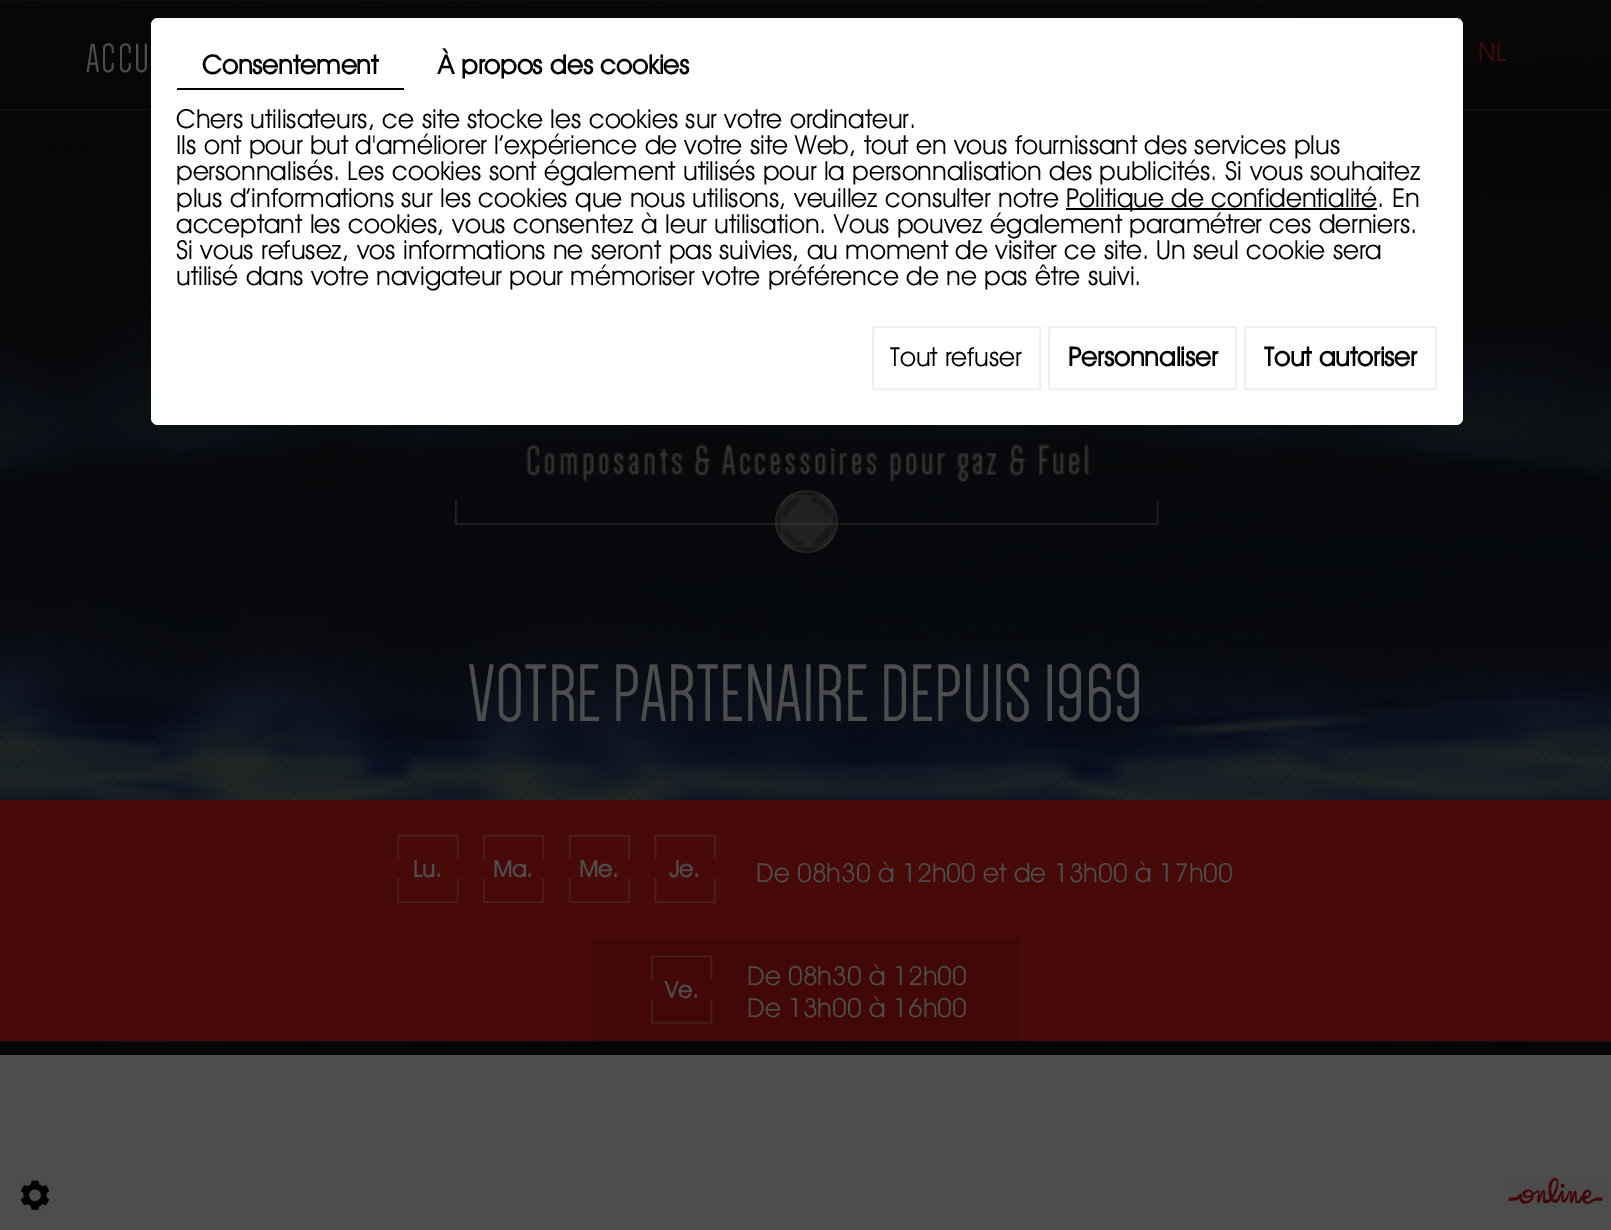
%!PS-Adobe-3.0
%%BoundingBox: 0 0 1611 1230
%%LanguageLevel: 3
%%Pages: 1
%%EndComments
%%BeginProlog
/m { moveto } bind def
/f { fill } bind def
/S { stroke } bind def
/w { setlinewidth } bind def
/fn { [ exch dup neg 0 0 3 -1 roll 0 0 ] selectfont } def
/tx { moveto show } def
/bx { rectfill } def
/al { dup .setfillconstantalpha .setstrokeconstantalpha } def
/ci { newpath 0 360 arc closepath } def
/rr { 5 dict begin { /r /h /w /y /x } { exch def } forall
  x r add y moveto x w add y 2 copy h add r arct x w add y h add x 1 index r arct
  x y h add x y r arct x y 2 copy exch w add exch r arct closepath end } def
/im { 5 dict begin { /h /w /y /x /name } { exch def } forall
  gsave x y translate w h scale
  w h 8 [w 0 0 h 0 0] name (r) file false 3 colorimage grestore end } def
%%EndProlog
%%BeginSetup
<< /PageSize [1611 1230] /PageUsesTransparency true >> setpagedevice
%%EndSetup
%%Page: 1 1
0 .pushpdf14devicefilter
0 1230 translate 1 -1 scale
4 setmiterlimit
0.302 setgray
0 0 1611 1230 bx
0.02 setgray
0 1043 1611 12 bx
(image0.raw) 0 0 1611 1043 im
(image1.raw) 0 0 1611 1043 im
0.19 al
0.302 setgray
806.5 521.5 31.5 ci f
1 al
(image2.raw) 780 495 53 53 im
0.21 al
2 w
806.5 521.5 30.5 ci S
0.11 al
0.294 setgray
0 109 1611 2 bx
/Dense-Regular 42 fn
1 al
0.302 setgray
86 72 m 2 0 (ACCU) ashow
/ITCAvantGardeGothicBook-Regular 26.25 fn
0.282 0.035 0.035 setrgbcolor
(NL) 1478 61 tx
(image3.raw) 455 444 704 81 im
/Dense-Regular 84 fn
0.302 setgray
(VOTRE PARTENAIRE DEPUIS 1969) 468 721 tx
0.282 0.035 0.035 setrgbcolor
0 800 1611 241 bx
(image4.raw) 397 834 62 69 im
/ITCAvantGardeGothicBook-Bold 23 fn
0.302 setgray
(Lu.) 413 877 tx
(image5.raw) 483 834 62 69 im
(Ma.) 493 877 tx
(image6.raw) 568 834 62 69 im
(Me.) 579 877 tx
(image7.raw) 654 834 62 69 im
(Je.) 669 877 tx
/ITCAvantGardeGothicBook-Regular 26.25 fn
(De 08h30 à 12h00 et de 13h00 à 17h00) 756 882 tx
0.259 0.031 0.031 setrgbcolor
592 938 428 103 bx
(image8.raw) 651 955 62 69 im
/ITCAvantGardeGothicBook-Bold 23 fn
0.302 setgray
(Ve.) 665 998 tx
/ITCAvantGardeGothicBook-Regular 26.25 fn
(De 08h30 à 12h00) 747 985 tx
(De 13h00 à 16h00) 747 1017 tx
1 setgray
151 18 1312 407 7 rr f
0 setgray
177 88 227 2 bx
/ITCAvantGardeGothicBook-Bold 26.25 fn
(Consentement) 202 74 tx
(À propos des cookies) 438 74 tx
/ITCAvantGardeGothicBook-Regular 26.25 fn
(Chers utilisateurs, ce site stocke les cookies sur votre ordinateur.) 176 128 tx
(Ils ont pour but d'améliorer l’expérience de votre site Web, tout en vous fournissant des services plus) 176 154 tx
(personnalisés. Les cookies sont également utilisés pour la personnalisation des publicités. Si vous souhaitez) 176 180 tx
(plus d’informations sur les cookies que nous utilisons, veuillez consulter notre) 176 207 tx
1066 208 311 2 bx
(Politique de confidentialité) 1066 207 tx
(. En) 1377 207 tx
(acceptant les cookies, vous consentez à leur utilisation. Vous pouvez également paramétrer ces derniers.) 176 233 tx
(Si vous refusez, vos informations ne seront pas suivies, au moment de visiter ce site. Un seul cookie sera) 176 259 tx
(utilisé dans votre navigateur pour mémoriser votre préférence de ne pas être suivi.) 176 285 tx
0.941 setgray
873 327 167 62 rectstroke
0 setgray
(Tout refuser) 890 366 tx
0.941 setgray
1049 327 187 62 rectstroke
/ITCAvantGardeGothicBook-Bold 26.25 fn
0 setgray
(Personnaliser) 1068 366 tx
0.941 setgray
1245 327 191 62 rectstroke
0 setgray
(Tout autoriser) 1264 366 tx
(image9.raw) 20 1180 30 30 im
(image10.raw) 1508 1177 95 27 im
.poppdf14devicefilter showpage
%%EOF
